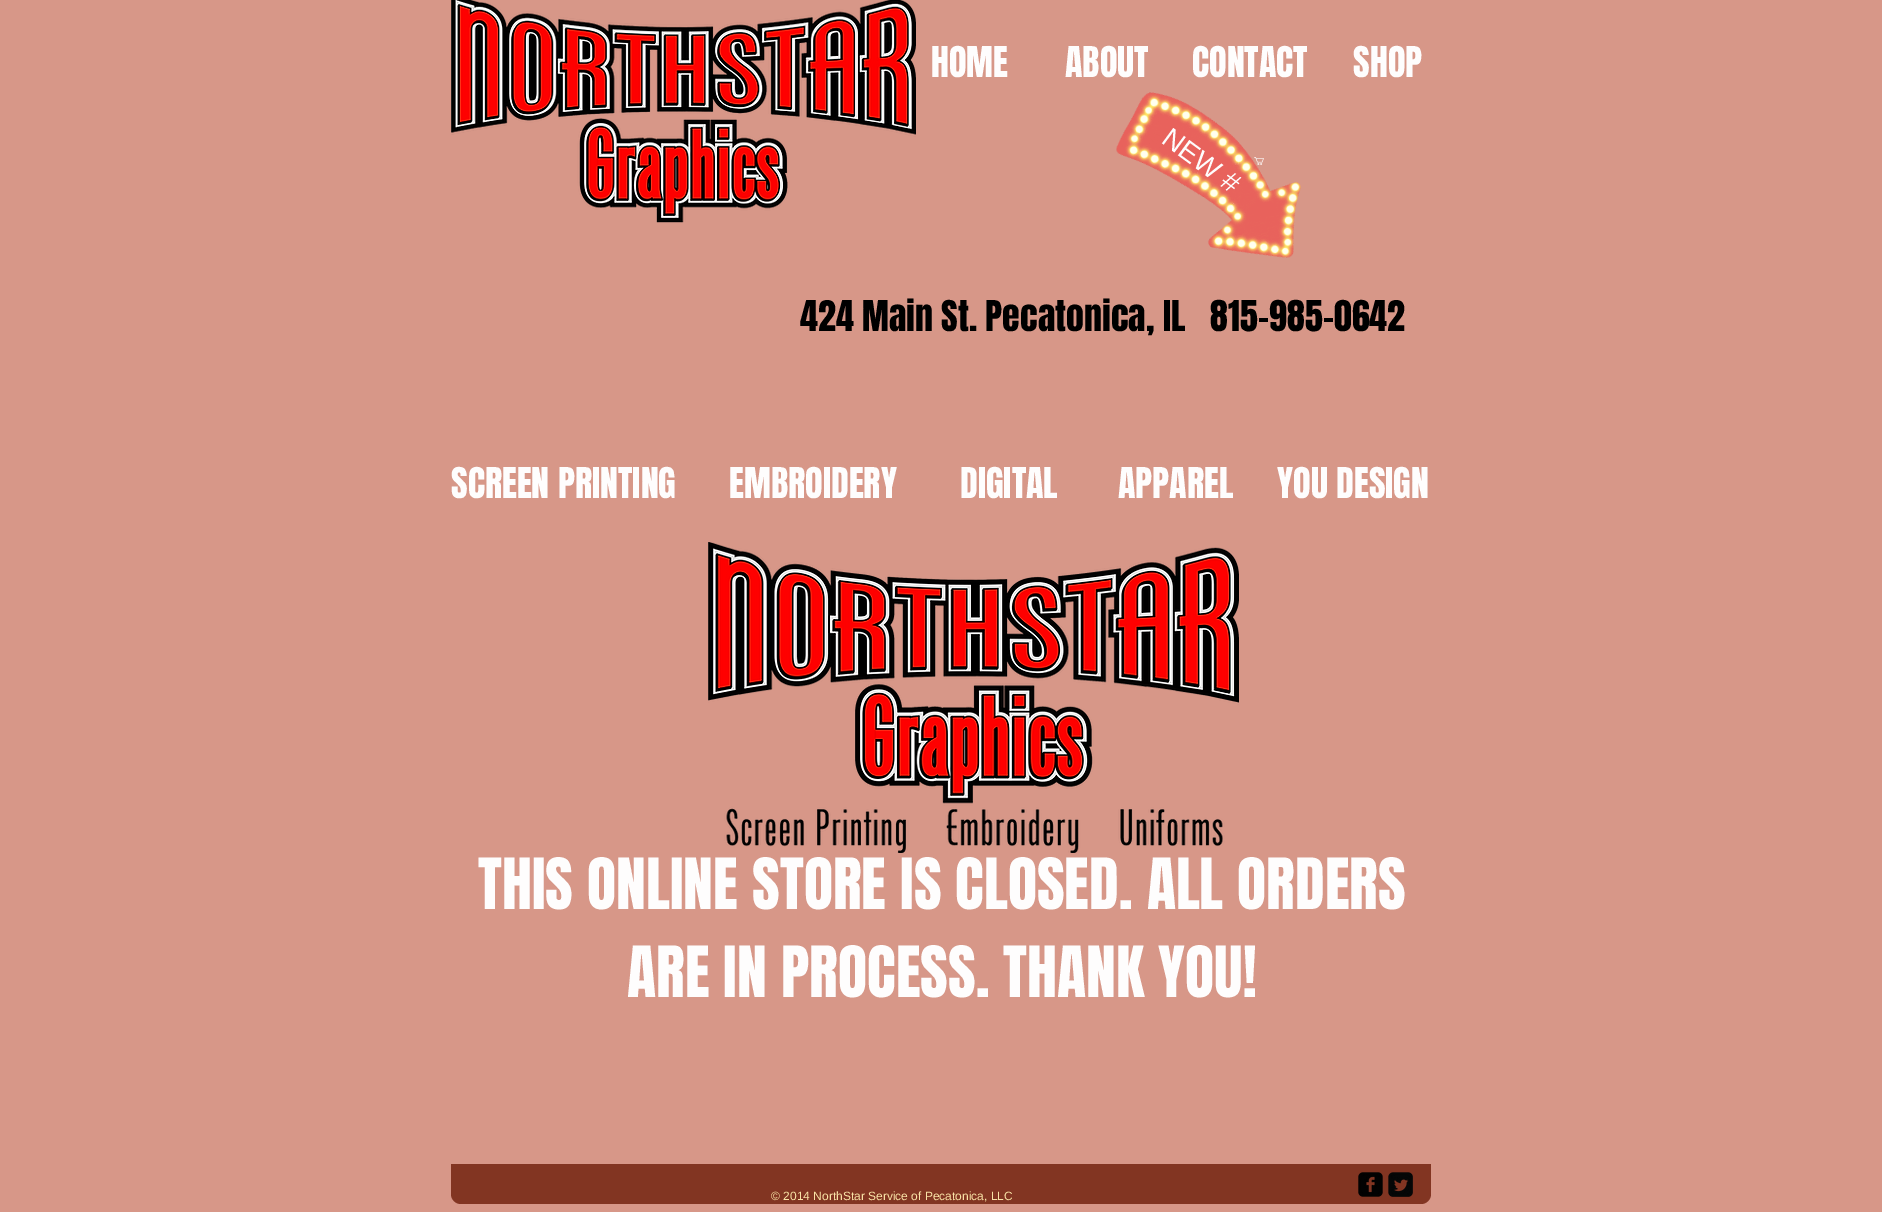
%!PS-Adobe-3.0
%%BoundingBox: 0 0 1882 1212
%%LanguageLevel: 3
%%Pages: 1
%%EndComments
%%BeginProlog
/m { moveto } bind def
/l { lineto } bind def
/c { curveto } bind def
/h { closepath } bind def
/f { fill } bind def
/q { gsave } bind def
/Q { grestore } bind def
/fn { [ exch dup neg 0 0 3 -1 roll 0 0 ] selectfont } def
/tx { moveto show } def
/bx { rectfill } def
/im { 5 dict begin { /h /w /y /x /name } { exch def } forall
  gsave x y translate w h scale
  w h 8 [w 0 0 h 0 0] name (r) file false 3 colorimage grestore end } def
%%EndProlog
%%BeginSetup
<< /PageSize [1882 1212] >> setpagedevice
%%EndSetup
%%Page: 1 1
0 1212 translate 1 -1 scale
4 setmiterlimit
0.843 0.592 0.533 setrgbcolor
0 0 1882 1212 bx
(image0.raw) 451 0 465 223 im
/Anton-Regular 36 fn
0.996 0.992 0.992 setrgbcolor
(HOME) 931 77 tx
(ABOUT) 1065 77 tx
(CONTACT) 1192 77 tx
(SHOP) 1353 77 tx
(image2.raw) 1254 157 10 8 im
(image1.raw) 1116 92 185 166 im
/LiberationSans-Regular 28 fn
q 1160 142 translate 36.3 rotate 0 0 m (NEW #) show Q
/Anton-Regular 36 fn
0 setgray
(424 Main St. Pecatonica, IL   815-985-0642) 800 331 tx
0.996 0.992 0.992 setrgbcolor
(SCREEN PRINTING) 451 498 tx
(EMBROIDERY) 729 498 tx
(DIGITAL) 960 498 tx
(APPAREL) 1118 498 tx
(YOU DESIGN) 1277 498 tx
(image3.raw) 708 542 531 311 im
/Anton-Regular 60 fn
(THIS ONLINE STORE IS CLOSED. ALL ORDERS) 478 909 tx
(ARE IN PROCESS. THANK YOU!) 627 997 tx
0.51 0.208 0.133 setrgbcolor
451 1164 m 1431 1164 l 1431 1194 l 1431 1199.5 1426.5 1204 1421 1204 c 461 1204 l 455.5 1204 451 1199.5 451 1194 c h f
/LiberationSans-Regular 12 fn
0.976 0.886 0.651 setrgbcolor
(© 2014 NorthStar Service of Pecatonica, LLC) 771 1200 tx
(image4.raw) 1358 1172 25 25 im
(image5.raw) 1388 1172 25 25 im
showpage
%%EOF
